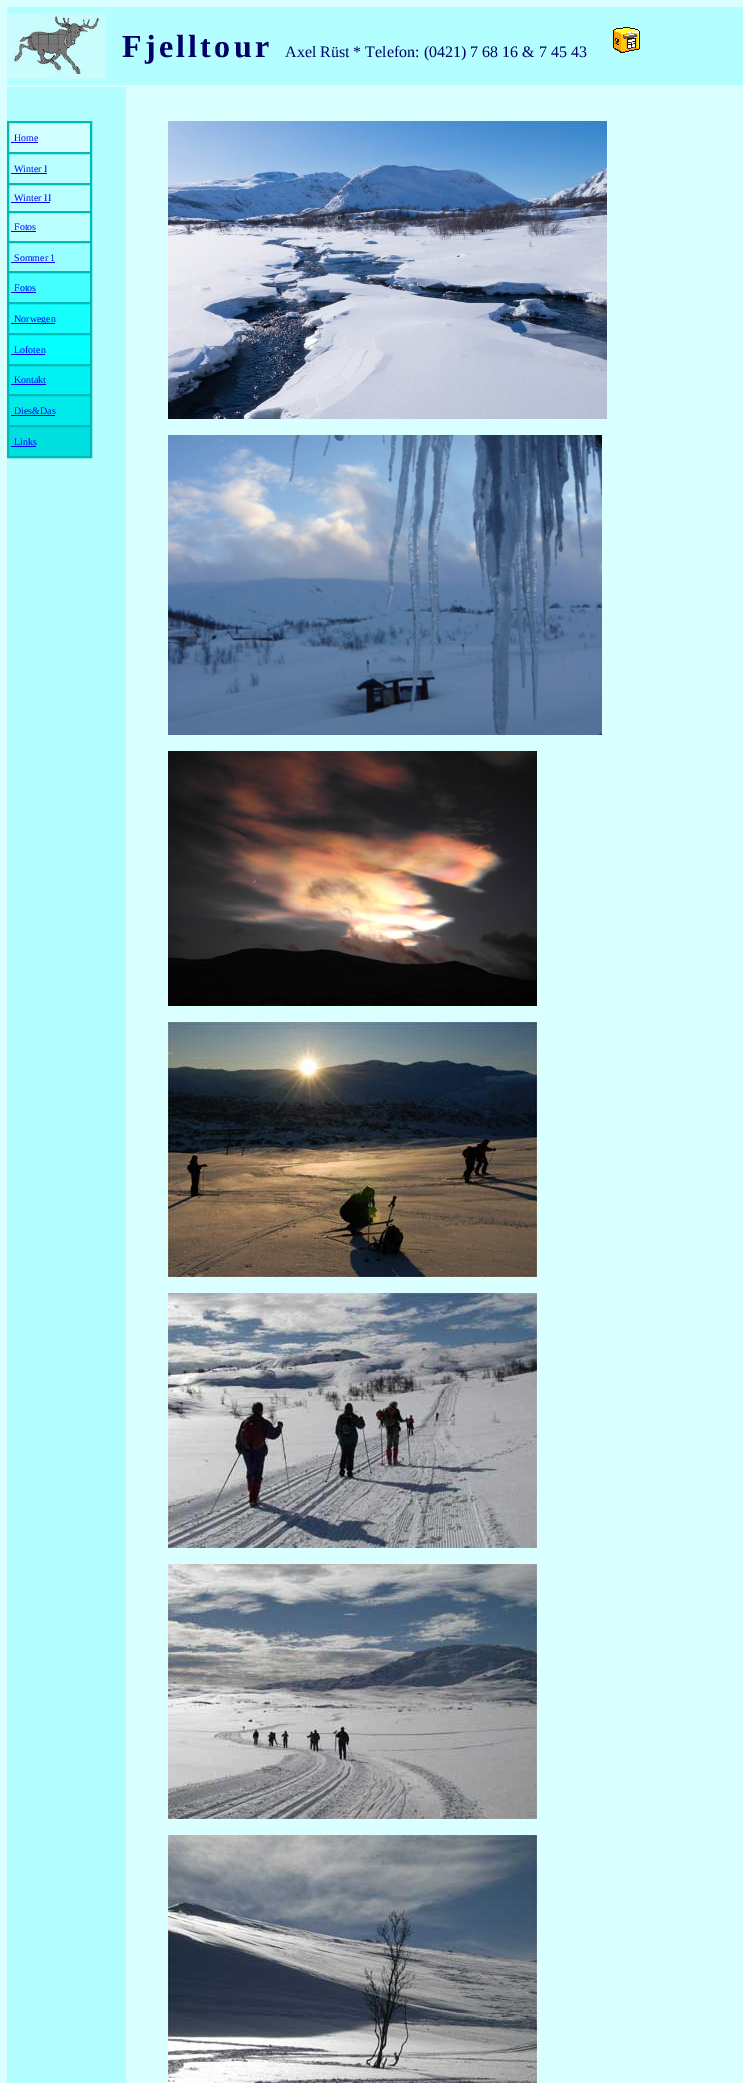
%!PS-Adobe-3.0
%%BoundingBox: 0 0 743 2083
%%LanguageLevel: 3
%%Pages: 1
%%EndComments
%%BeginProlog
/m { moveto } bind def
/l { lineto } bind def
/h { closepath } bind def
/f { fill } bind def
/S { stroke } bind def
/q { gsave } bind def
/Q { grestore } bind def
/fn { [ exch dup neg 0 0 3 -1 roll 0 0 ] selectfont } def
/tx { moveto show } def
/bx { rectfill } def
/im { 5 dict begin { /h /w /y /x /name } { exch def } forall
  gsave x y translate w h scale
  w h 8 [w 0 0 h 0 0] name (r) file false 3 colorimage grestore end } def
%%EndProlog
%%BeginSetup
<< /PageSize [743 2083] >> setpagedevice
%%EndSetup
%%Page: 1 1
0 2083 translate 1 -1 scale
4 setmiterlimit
0.851 1 1 setrgbcolor
0 0 743 2083 bx
0.702 1 1 setrgbcolor
7 7 736 78 bx
(image0.raw) 7 13 99 66 im
/LiberationSerif-Bold 32 fn
0 0 0.4 setrgbcolor
(F) 122 57 tx
(j) 145 57 tx
(e) 159 57 tx
(l) 176 57 tx
(l) 188 57 tx
(t) 200 57 tx
(o) 214 57 tx
(u) 234 57 tx
(r) 255 57 tx
/LiberationSerif-Regular 16 fn
(Axel Rüst * Telefon: \(0421\) 7 68 16 & 7 45 43) 285 57 tx
(image1.raw) 613 27 27 26 im
0.702 1 1 setrgbcolor
7 87 119 1996 bx
0 0.725 0.725 setrgbcolor
7.5 121.5 84 336 rectstroke
0.824 1 1 setrgbcolor
8.5 122.5 m 90.5 122.5 l 90.5 152.5 l 8.5 152.5 l h q f Q
0 0.725 0.725 setrgbcolor
S
/LiberationSerif-Regular 10 fn
0 0 1 setrgbcolor
(Home) 14 141 tx
11 142 27 1 bx
0.725 1 1 setrgbcolor
8.5 153.5 m 90.5 153.5 l 90.5 183.5 l 8.5 183.5 l h q f Q
0 0.725 0.725 setrgbcolor
S
0 0 1 setrgbcolor
(Winter I) 14 172 tx
11 173 36 1 bx
0.725 1 1 setrgbcolor
8.5 184.5 m 90.5 184.5 l 90.5 211.5 l 8.5 211.5 l h q f Q
0 0.725 0.725 setrgbcolor
S
0 0 1 setrgbcolor
(Winter II) 14 201 tx
11 202 39 1 bx
0.725 1 1 setrgbcolor
8.5 212.5 m 90.5 212.5 l 90.5 241.5 l 8.5 241.5 l h q f Q
0 0.725 0.725 setrgbcolor
S
0 0 1 setrgbcolor
(Fotos) 14 230 tx
11 231 25 1 bx
0.592 1 1 setrgbcolor
8.5 242.5 m 90.5 242.5 l 90.5 271.5 l 8.5 271.5 l h q f Q
0 0.725 0.725 setrgbcolor
S
0 0 1 setrgbcolor
(Sommer 1) 14 261 tx
11 262 44 1 bx
0.275 1 1 setrgbcolor
8.5 272.5 m 90.5 272.5 l 90.5 302.5 l 8.5 302.5 l h q f Q
0 0.725 0.725 setrgbcolor
S
0 0 1 setrgbcolor
(Fotos) 14 291 tx
11 292 25 1 bx
0.082 1 1 setrgbcolor
8.5 303.5 m 90.5 303.5 l 90.5 333.5 l 8.5 333.5 l h q f Q
0 0.725 0.725 setrgbcolor
S
0 0 1 setrgbcolor
11 323 44 1 bx
(Norwegen) 14 322 tx
0.024 1 1 setrgbcolor
8.5 334.5 m 90.5 334.5 l 90.5 364.5 l 8.5 364.5 l h q f Q
0 0.725 0.725 setrgbcolor
S
0 0 1 setrgbcolor
(Lofoten) 14 353 tx
11 354 34 1 bx
0 0.949 0.949 setrgbcolor
8.5 365.5 m 90.5 365.5 l 90.5 394.5 l 8.5 394.5 l h q f Q
0 0.725 0.725 setrgbcolor
S
0 0 1 setrgbcolor
(Kontakt) 14 383 tx
11 384 35 1 bx
0 0.918 0.918 setrgbcolor
8.5 395.5 m 90.5 395.5 l 90.5 425.5 l 8.5 425.5 l h q f Q
0 0.725 0.725 setrgbcolor
S
0 0 1 setrgbcolor
(Dies&Das) 14 414 tx
11 415 44 1 bx
0 0.875 0.875 setrgbcolor
8.5 426.5 m 90.5 426.5 l 90.5 456.5 l 8.5 456.5 l h q f Q
0 0.725 0.725 setrgbcolor
S
0 0 1 setrgbcolor
(Links) 14 445 tx
11 446 25 1 bx
(image2.raw) 168 121 439 298 im
(image3.raw) 168 435 434 300 im
(image4.raw) 168 751 369 255 im
(image5.raw) 168 1022 369 255 im
(image6.raw) 168 1293 369 255 im
(image7.raw) 168 1564 369 255 im
(image8.raw) 168 1835 369 248 im
showpage
%%EOF
